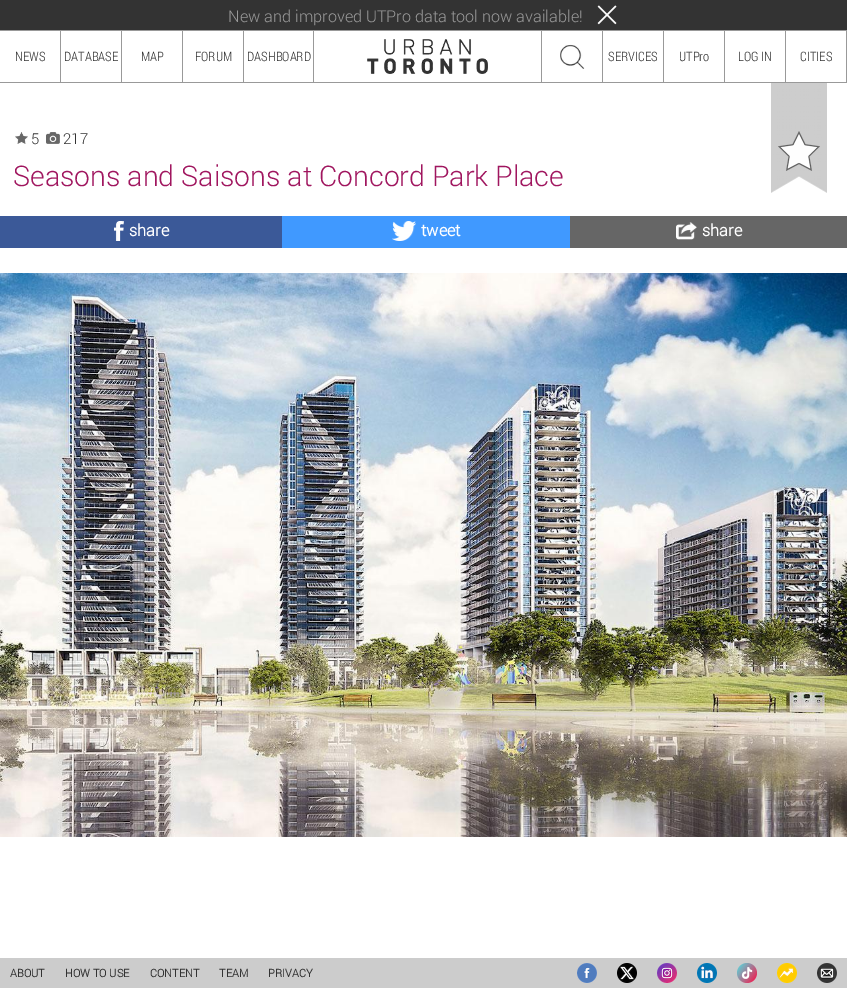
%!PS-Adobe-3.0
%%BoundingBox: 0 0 847 988
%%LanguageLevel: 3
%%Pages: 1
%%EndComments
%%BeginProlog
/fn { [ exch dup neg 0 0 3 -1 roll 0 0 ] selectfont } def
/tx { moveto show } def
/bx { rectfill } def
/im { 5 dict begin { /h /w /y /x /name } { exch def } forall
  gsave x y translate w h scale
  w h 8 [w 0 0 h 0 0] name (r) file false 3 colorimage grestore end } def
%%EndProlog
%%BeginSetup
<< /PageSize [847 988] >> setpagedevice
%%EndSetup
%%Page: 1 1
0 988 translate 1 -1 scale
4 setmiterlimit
1 setgray
0 0 847 988 bx
0.2 setgray
0 0 847 30 bx
/Roboto-Light 16.25 fn
0.6 setgray
(New and improved UTPro data tool now available!) 228 22 tx
(image0.raw) 597 5 20 20 im
0 30 847 1 bx
0 82 847 1 bx
/RobotoCondensed-Light 13 fn
0.2 setgray
(NEWS) 15 61 tx
0.6 setgray
60 30 1 53 bx
0.2 setgray
(DATABASE) 64 61 tx
0.6 setgray
121 30 1 53 bx
0.2 setgray
(MAP) 141 61 tx
0.6 setgray
182 30 1 53 bx
0.2 setgray
(FORUM) 195 61 tx
0.6 setgray
313 30 1 53 bx
243 30 1 53 bx
0.2 setgray
(DASHBOARD) 247 61 tx
(image1.raw) 367 39 121 35 im
0.6 setgray
541 30 1 53 bx
(image2.raw) 560 44 25 25 im
602 30 1 53 bx
0.2 setgray
(SERVICES) 608 61 tx
0.6 setgray
663 30 1 53 bx
0.2 setgray
(UTPro) 679 61 tx
0.6 setgray
724 30 1 53 bx
0.2 setgray
(LOG IN) 738 61 tx
0.6 setgray
846 30 1 53 bx
785 30 1 53 bx
0.2 setgray
(CITIES) 800 61 tx
(image3.raw) 15 132 13 12 im
/Roboto-Light 15 fn
(5) 31 144 tx
(image4.raw) 46 132 14 12 im
(217) 63 144 tx
(image10.raw) 771 83 56 110 im
(image5.raw) 778 131 42 40 im
/Roboto-Light 28.4 fn
0.627 0.086 0.373 setrgbcolor
(Seasons and Saisons at Concord Park Place) 13 186 tx
0.231 0.349 0.596 setrgbcolor
0 216 282 32 bx
(image6.raw) 114 221 10 20 im
/Roboto-Bold 16.25 fn
1 setgray
(share) 129 236 tx
0.251 0.6 1 setrgbcolor
282 216 288 32 bx
(image7.raw) 392 221 24 20 im
1 setgray
(tweet) 421 236 tx
0.4 setgray
570 216 277 32 bx
(image8.raw) 676 222 21 18 im
1 setgray
(share) 702 236 tx
(image9.raw) 0 273 847 564 im
0.8 setgray
0 958 847 30 bx
/Roboto-Bold 11 fn
0.2 setgray
(ABOUT) 10 977 tx
(HOW TO USE) 65 977 tx
(CONTENT) 150 977 tx
(TEAM) 219 977 tx
(PRIVACY) 268 977 tx
(image11.raw) 577 963 20 20 im
(image12.raw) 617 963 20 20 im
(image13.raw) 657 963 20 20 im
(image14.raw) 697 963 20 20 im
(image15.raw) 737 963 20 20 im
(image16.raw) 777 963 20 20 im
(image17.raw) 817 963 20 20 im
showpage
%%EOF
